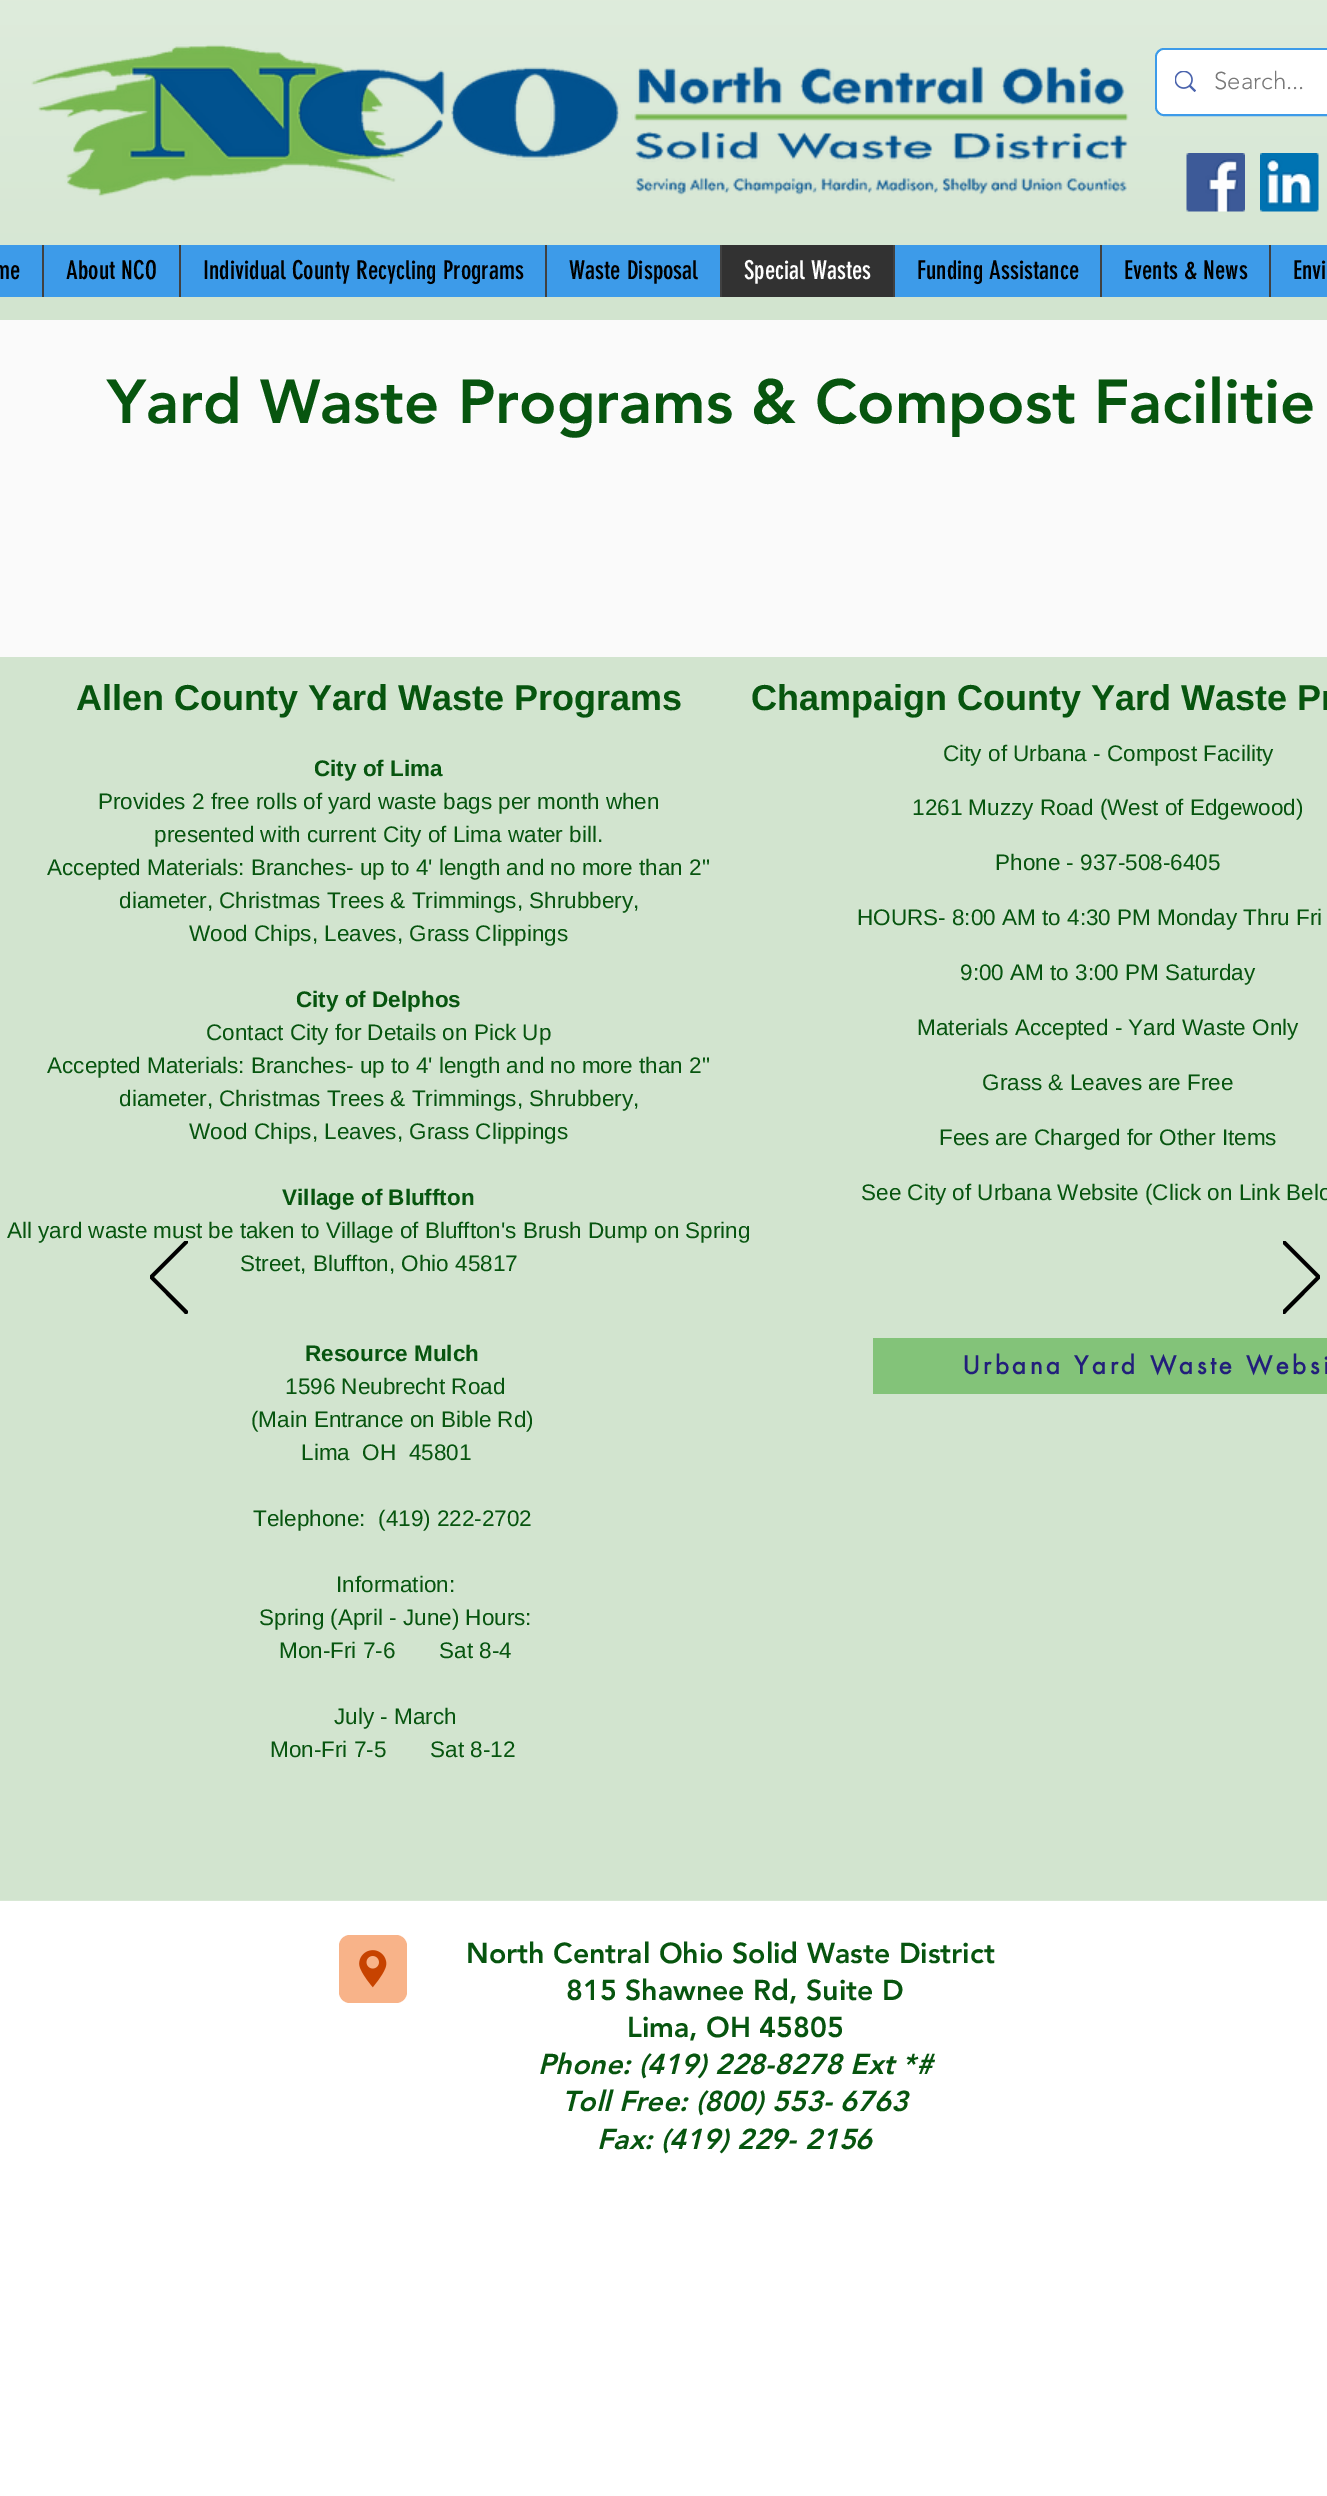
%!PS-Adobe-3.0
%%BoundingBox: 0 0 1327 2496
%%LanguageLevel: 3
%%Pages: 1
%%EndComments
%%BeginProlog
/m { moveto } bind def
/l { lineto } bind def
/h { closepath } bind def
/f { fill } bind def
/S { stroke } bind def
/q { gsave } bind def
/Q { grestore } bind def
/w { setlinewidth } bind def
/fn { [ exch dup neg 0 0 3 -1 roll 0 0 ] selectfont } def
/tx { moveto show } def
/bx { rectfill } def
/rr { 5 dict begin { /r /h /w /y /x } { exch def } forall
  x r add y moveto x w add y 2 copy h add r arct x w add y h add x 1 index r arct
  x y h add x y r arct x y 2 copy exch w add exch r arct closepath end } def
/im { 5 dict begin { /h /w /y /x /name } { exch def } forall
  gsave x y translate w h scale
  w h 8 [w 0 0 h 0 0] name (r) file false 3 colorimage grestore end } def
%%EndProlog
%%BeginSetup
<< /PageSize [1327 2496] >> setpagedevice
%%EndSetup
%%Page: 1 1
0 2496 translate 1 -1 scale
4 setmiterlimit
1 setgray
0 0 1327 2496 bx
0.824 0.894 0.812 setrgbcolor
0 0 1327 320 bx
(image0.raw) 0 0 1327 245 im
(image1.raw) 31 44 1098 153 im
0.239 0.608 0.914 setrgbcolor
2 w
1156 49 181 66 8 rr S
1 setgray
1157 50 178 64 8 rr f
(image2.raw) 1175 71 21 21 im
/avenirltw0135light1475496-Light 24 fn
0.471 setgray
(Search...) 1214 89 tx
(image3.raw) 1186 153 59 59 im
(image4.raw) 1260 153 59 59 im
0.239 0.608 0.914 setrgbcolor
0 245 1327 52 bx
/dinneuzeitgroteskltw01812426-Regular 25.5 fn
0 setgray
(me) -6 279 tx
0.255 setgray
42 245 2 52 bx
0 setgray
(About NCO) 66 279 tx
0.255 setgray
179 245 2 52 bx
0 setgray
(Individual County Recycling Programs) 203 279 tx
0.255 setgray
545 245 2 52 bx
0 setgray
(Waste Disposal) 569 279 tx
0.196 setgray
722 245 171 52 bx
0.255 setgray
720 245 2 52 bx
1 setgray
(Special Wastes) 744 279 tx
0.255 setgray
893 245 2 52 bx
0 setgray
(Funding Assistance) 917 279 tx
0.255 setgray
1100 245 2 52 bx
0 setgray
(Events & News) 1124 279 tx
0.255 setgray
1269 245 2 52 bx
0 setgray
(Envi) 1293 279 tx
0.98 setgray
0 320 1327 337 bx
/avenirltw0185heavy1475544-Black 61.5 fn
0.027 0.333 0.059 setrgbcolor
(Yard Waste Programs & Compost Facilitie) 107 423 tx
0.824 0.894 0.812 setrgbcolor
0 657 1327 1243 bx
/LiberationSans-Bold 36 fn
0.027 0.333 0.059 setrgbcolor
(Allen County Yard Waste Programs) 76 710 tx
/LiberationSans-Bold 22.5 fn
(City of Lima) 314 776 tx
/LiberationSans-Regular 22.5 fn
(Provides 2 free rolls of yard waste bags per month when) 98 809 tx
(presented with current City of Lima water bill.) 154 842 tx
(Accepted Materials: Branches- up to 4' length and no more than 2") 47 875 tx
(diameter, Christmas Trees & Trimmings, Shrubbery,) 119 908 tx
(Wood Chips, Leaves, Grass Clippings) 189 941 tx
/LiberationSans-Bold 22.5 fn
(City of Delphos) 296 1007 tx
/LiberationSans-Regular 22.5 fn
(Contact City for Details on Pick Up) 206 1040 tx
(Accepted Materials: Branches- up to 4' length and no more than 2") 47 1073 tx
(diameter, Christmas Trees & Trimmings, Shrubbery,) 119 1106 tx
(Wood Chips, Leaves, Grass Clippings) 189 1139 tx
/LiberationSans-Bold 22.5 fn
(Village of Bluffton) 282 1205 tx
/LiberationSans-Regular 22.5 fn
(All yard waste must be taken to Village of Bluffton's Brush Dump on Spring) 7 1238 tx
(Street, Bluffton, Ohio 45817) 240 1271 tx
/LiberationSans-Bold 36 fn
(Champaign County Yard Waste Pr) 751 710 tx
/LiberationSans-Regular 22.5 fn
(City of Urbana - Compost Facility) 943 761 tx
(1261 Muzzy Road \(West of Edgewood\)) 912 815 tx
(Phone - 937-508-6405) 995 870 tx
(HOURS- 8:00 AM to 4:30 PM Monday Thru Fri) 857 925 tx
(9:00 AM to 3:00 PM Saturday) 960 980 tx
(Materials Accepted - Yard Waste Only) 917 1035 tx
(Grass & Leaves are Free) 982 1090 tx
(Fees are Charged for Other Items) 939 1145 tx
(See City of Urbana Website \(Click on Link Belo) 861 1200 tx
/LiberationSans-Bold 22.5 fn
(Resource Mulch) 305 1361 tx
/LiberationSans-Regular 22.5 fn
(1596 Neubrecht Road) 285 1394 tx
(\(Main Entrance on Bible Rd\)) 251 1427 tx
(Lima  OH  45801) 301 1460 tx
(Telephone:  \(419\) 222-2702) 253 1526 tx
(Information:) 336 1592 tx
(Spring \(April - June\) Hours:) 259 1625 tx
(Mon-Fri 7-6       Sat 8-4) 279 1658 tx
(July - March) 334 1724 tx
(Mon-Fri 7-5       Sat 8-12) 270 1757 tx
0.514 0.765 0.475 setrgbcolor
873 1338 454 56 bx
/futura-Bold 24 fn
0.133 0.122 0.482 setrgbcolor
963 1374 m 3.6 0 (Urbana Yard Waste Websi) ashow
0 setgray
186 1313 m 150 1277 l 186 1241 l 187 1242 l 152 1277 l 187 1312 l h f
q
150 1241 38 73 rectclip
1.8 w
186 1313.5 m 150 1277 l 186 1241 l 187.5 1242 l 152.5 1277 l 187.5 1312 l h S
Q
1284 1313 m 1320 1277 l 1284 1241 l 1283 1242 l 1318 1277 l 1283 1312 l h f
q
1283 1241 37 73 rectclip
1.8 w
1284 1313.5 m 1320 1277 l 1284 1241 l 1282.5 1242 l 1317.5 1277 l 1282.5 1312 l h S
Q
0.847 0.91 0.835 setrgbcolor
0 1900 1327 1 bx
0.973 0.702 0.537 setrgbcolor
339 1935 68 68 11 rr f
(image5.raw) 359 1950 28 38 im
/avenirltw0185heavy1475544-Black 28.5 fn
0.027 0.333 0.059 setrgbcolor
(North Central Ohio Solid Waste District) 466 1963 tx
(815 Shawnee Rd, Suite D) 566 2000 tx
(Lima, OH 45805) 627 2037 tx
/avenirltw0185heavy1475544-BlackItalic 28.5 fn
(Phone: \(419\) 228-8278 Ext *#) 538 2074 tx
(Toll Free: \(800\) 553- 6763) 562 2111 tx
(Fax: \(419\) 229- 2156) 597 2149 tx
showpage
%%EOF
